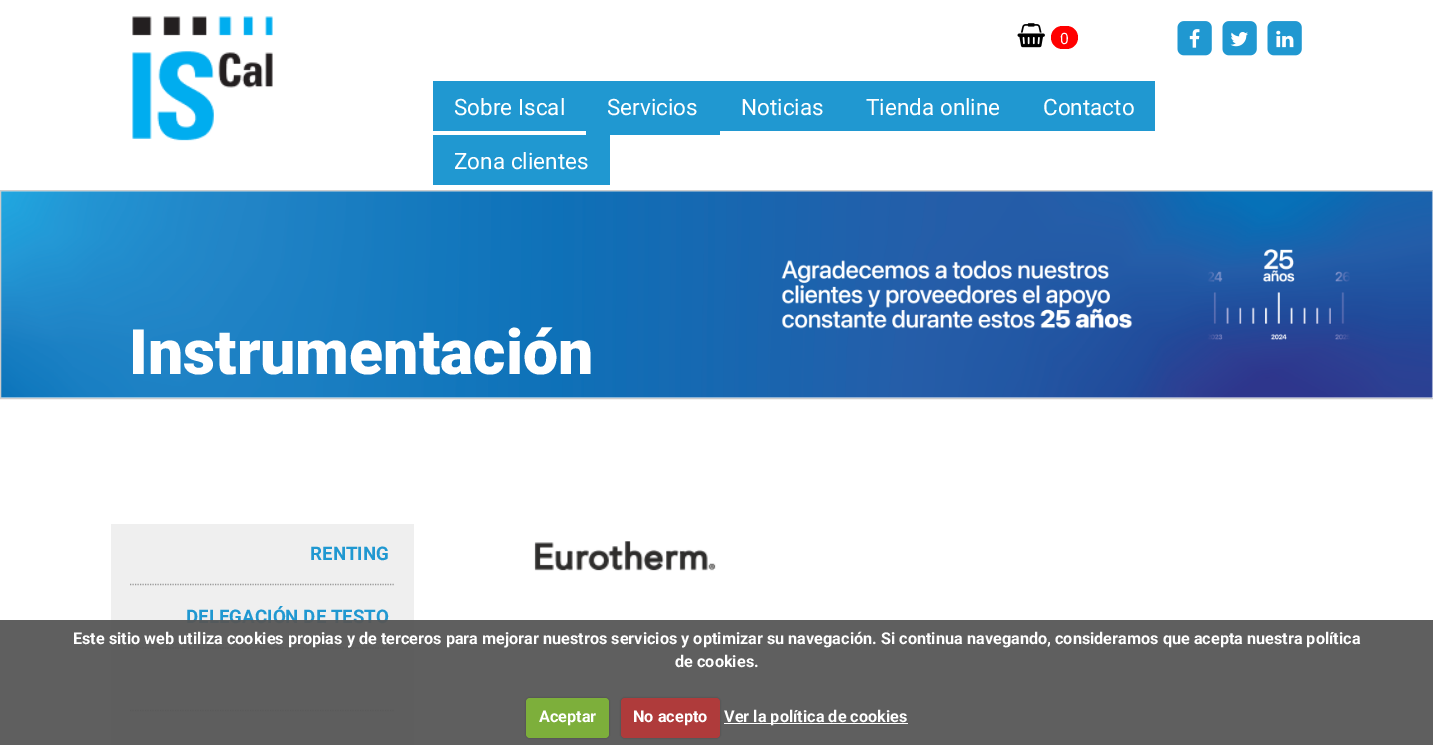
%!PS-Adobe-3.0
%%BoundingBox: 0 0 1433 745
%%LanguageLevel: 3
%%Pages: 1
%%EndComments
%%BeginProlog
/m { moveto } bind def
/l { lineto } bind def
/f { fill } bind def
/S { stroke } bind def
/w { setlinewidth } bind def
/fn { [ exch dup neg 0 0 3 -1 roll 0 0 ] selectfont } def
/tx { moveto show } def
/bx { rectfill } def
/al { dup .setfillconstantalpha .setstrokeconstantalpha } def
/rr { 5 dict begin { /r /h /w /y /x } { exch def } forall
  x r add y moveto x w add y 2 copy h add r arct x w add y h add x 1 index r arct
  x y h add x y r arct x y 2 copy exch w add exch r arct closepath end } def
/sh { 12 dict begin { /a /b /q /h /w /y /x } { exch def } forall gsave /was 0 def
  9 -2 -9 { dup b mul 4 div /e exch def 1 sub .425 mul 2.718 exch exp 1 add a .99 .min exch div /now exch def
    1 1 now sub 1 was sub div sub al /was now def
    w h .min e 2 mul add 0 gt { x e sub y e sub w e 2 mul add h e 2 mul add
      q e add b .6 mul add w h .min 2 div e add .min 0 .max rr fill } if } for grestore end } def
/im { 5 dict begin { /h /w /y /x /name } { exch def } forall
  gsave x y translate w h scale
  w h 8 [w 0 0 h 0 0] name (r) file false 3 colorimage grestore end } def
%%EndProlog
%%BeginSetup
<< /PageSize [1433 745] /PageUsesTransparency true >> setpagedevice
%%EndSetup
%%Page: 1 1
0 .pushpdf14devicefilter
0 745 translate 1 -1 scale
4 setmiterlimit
1 setgray
0 0 1433 745 bx
(image0.raw) 132 16 141 125 im
(image1.raw) 1017 23 28 25 im
1 0 0 setrgbcolor
1051 26 27 23 11.5 rr f
/Roboto-Bold 15 fn
1 setgray
(0) 1060 44 tx
(image2.raw) 1177 21 35 35 im
(image3.raw) 1189 29 11 19 im
(image2.raw) 1222 21 35 35 im
(image4.raw) 1230 32 18 15 im
(image2.raw) 1267 21 35 35 im
(image5.raw) 1276 30 18 18 im
0.125 0.596 0.82 setrgbcolor
433 81 153 50 bx
/Roboto-Regular 22.5 fn
1 setgray
(Sobre Iscal) 454 115 tx
0.125 0.596 0.82 setrgbcolor
586 81 134 54 bx
1 setgray
(Servicios) 607 115 tx
0.125 0.596 0.82 setrgbcolor
720 81 435 50 bx
1 setgray
(Noticias) 741 115 tx
(Tienda online) 866 115 tx
(Contacto) 1043 115 tx
0.125 0.596 0.82 setrgbcolor
433 135 177 50 bx
1 setgray
(Zona clientes) 454 169 tx
(image6.raw) 1 191 1432 207 im
0.8 setgray
0.5 190.5 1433 208 rectstroke
/Roboto-Black 62.5 fn
1 setgray
(Instrumentación) 129 374 tx
0.937 setgray
111 524 303 221 bx
/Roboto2-Bold 18.75 fn
0.125 0.596 0.82 setrgbcolor
(RENTING) 310 560 tx
0.6 setgray
1.2 w
[1.25 1.25] 0 setdash
130 584.5 m 395 584.5 l S
0.125 0.596 0.82 setrgbcolor
(DELEGACIÓN DE TESTO) 186 623 tx
0.6 setgray
130 648 m 395 648 l S
130 710.5 m 395 710.5 l S
(image7.raw) 534 541 182 30 im
0.95 al
0.337 setgray
0 620 1433 125 bx
/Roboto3-Bold 16.25 fn
1 al
1 setgray
(Este sitio web utiliza cookies propias y de terceros para mejorar nuestros servicios y optimizar su navegación. Si continua navegando, consideramos que acepta nuestra política) 73 644 tx
(de cookies.) 675 667 tx
0 setgray
526 698 83 40 4 1 0.25 sh
0.49 0.686 0.231 setrgbcolor
526 698 83 40 4 rr f
1 setgray
(Aceptar) 539 722 tx
0 setgray
621 698 99 40 4 1 0.25 sh
0.686 0.231 0.231 setrgbcolor
621 698 99 40 4 rr f
1 setgray
(No acepto) 633 722 tx
724 723 184 1 bx
(Ver la política de cookies) 724 722 tx
.poppdf14devicefilter showpage
%%EOF
